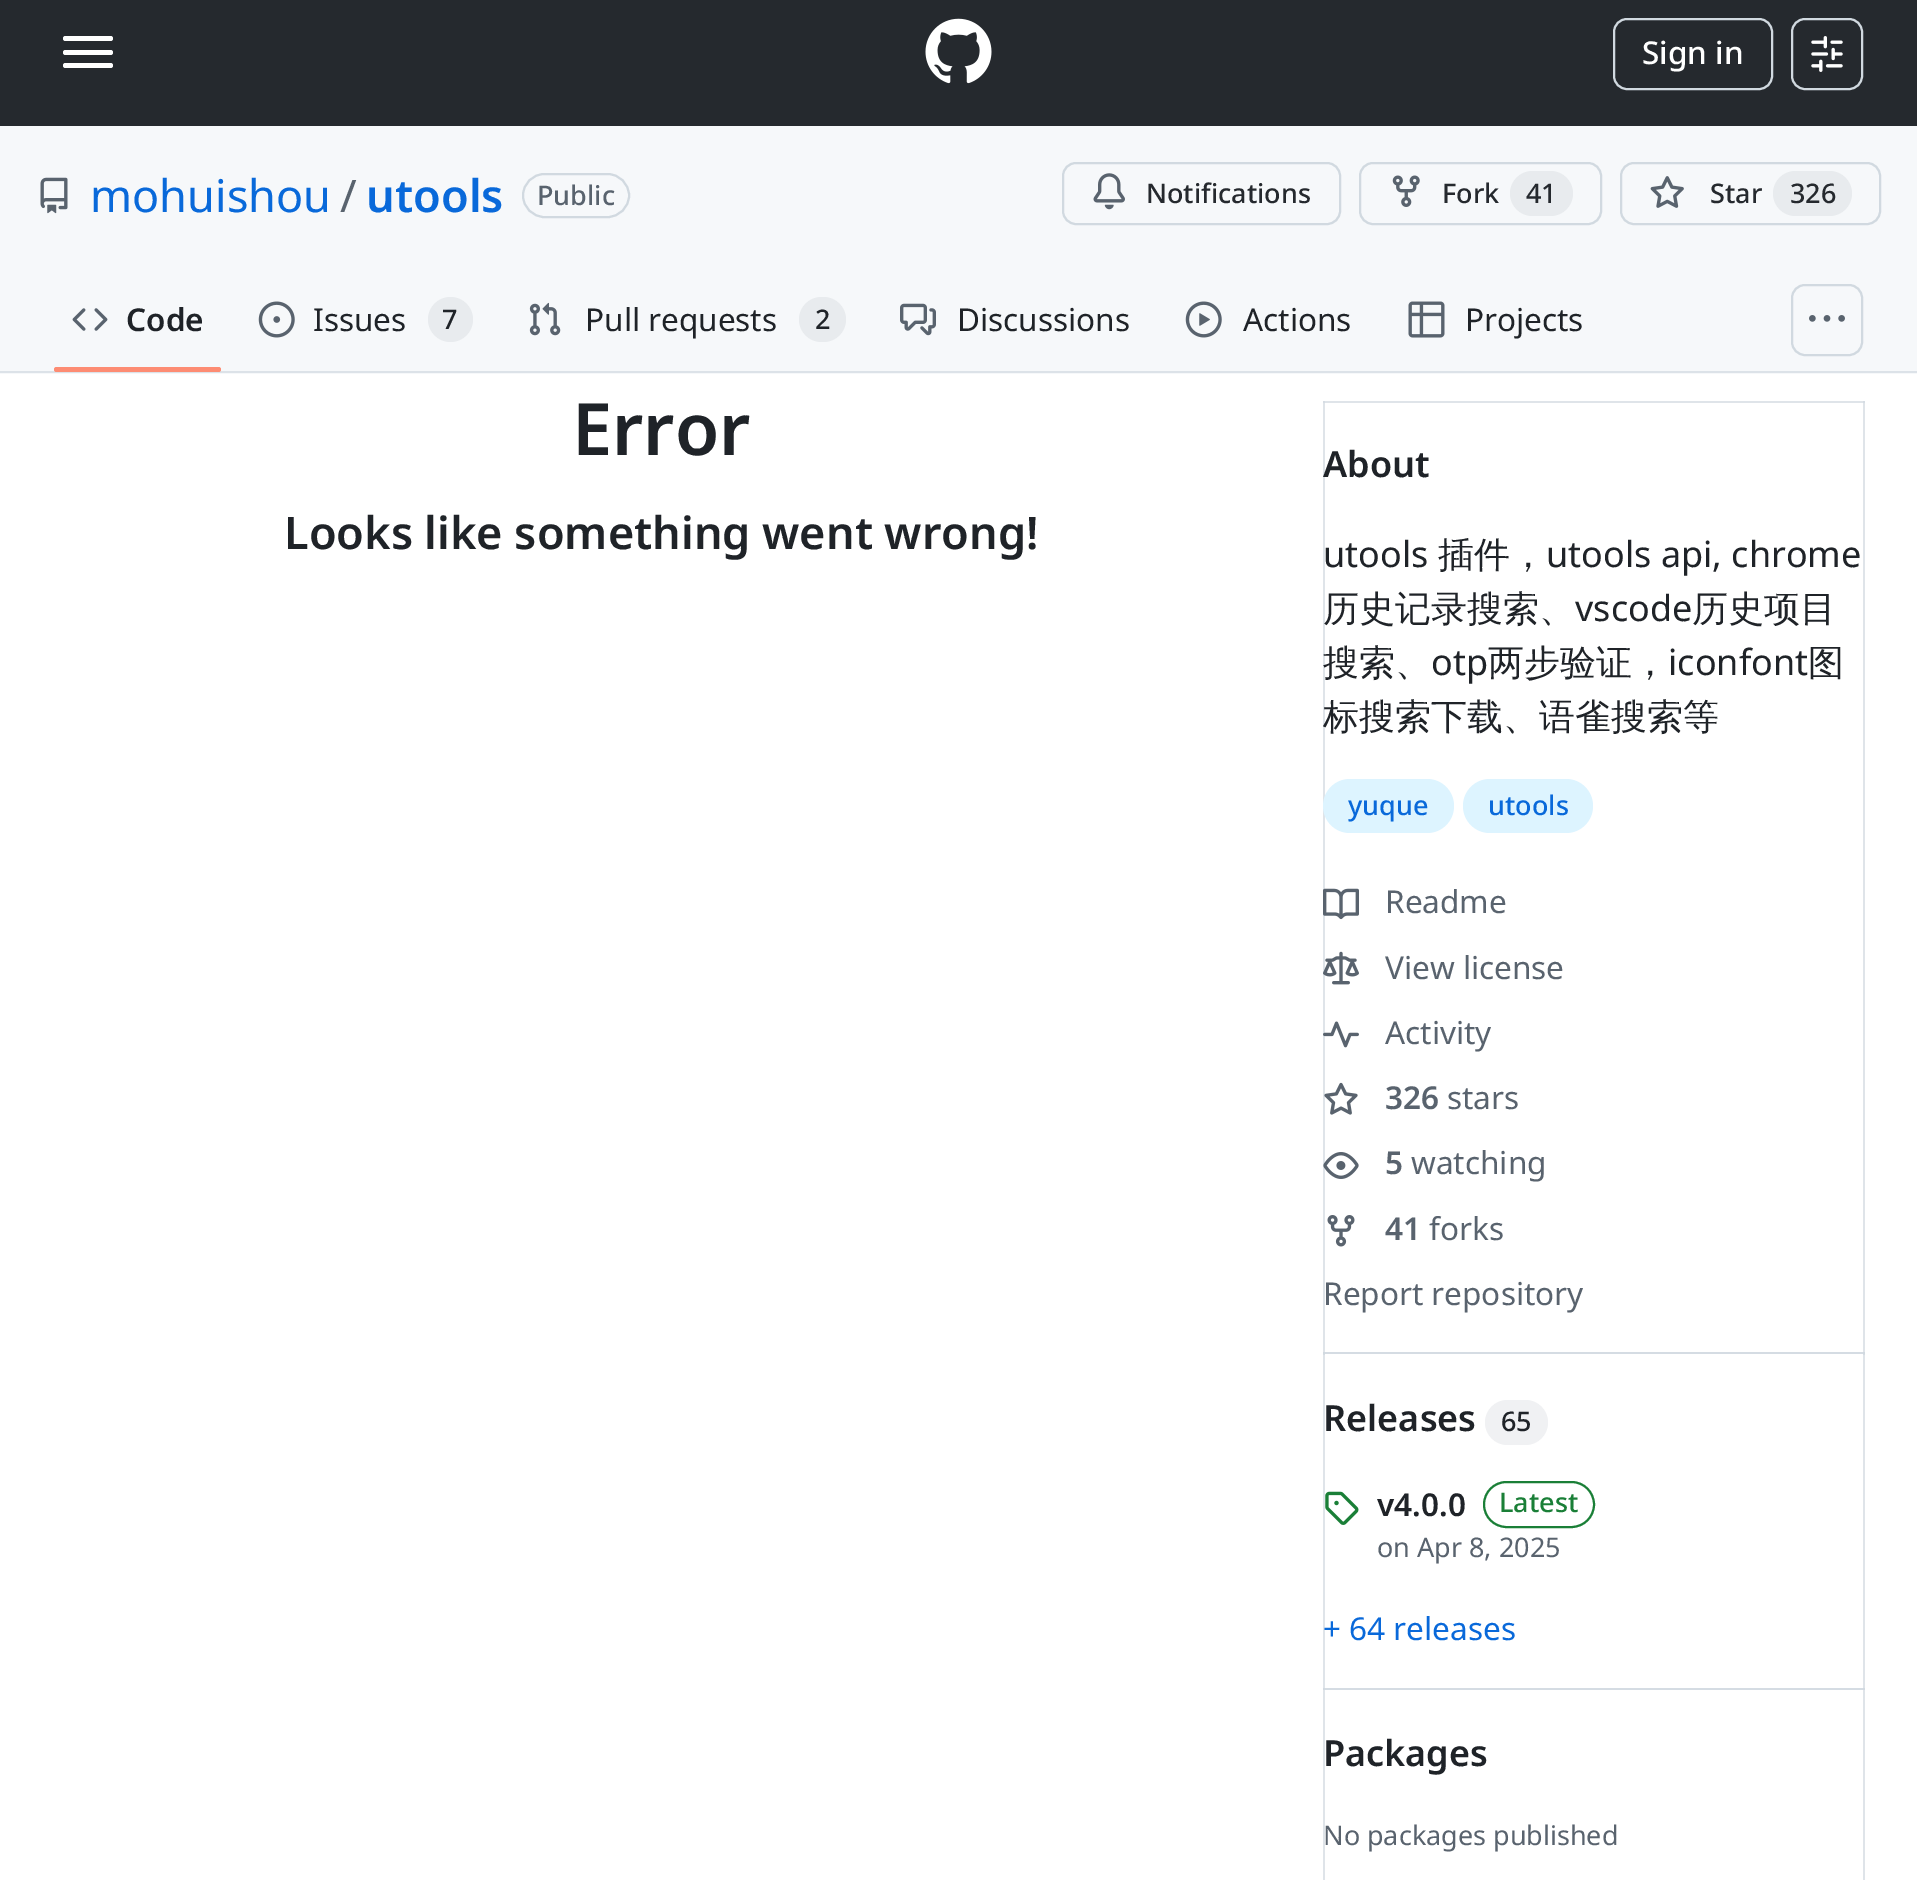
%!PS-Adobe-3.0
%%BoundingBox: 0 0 1917 1880
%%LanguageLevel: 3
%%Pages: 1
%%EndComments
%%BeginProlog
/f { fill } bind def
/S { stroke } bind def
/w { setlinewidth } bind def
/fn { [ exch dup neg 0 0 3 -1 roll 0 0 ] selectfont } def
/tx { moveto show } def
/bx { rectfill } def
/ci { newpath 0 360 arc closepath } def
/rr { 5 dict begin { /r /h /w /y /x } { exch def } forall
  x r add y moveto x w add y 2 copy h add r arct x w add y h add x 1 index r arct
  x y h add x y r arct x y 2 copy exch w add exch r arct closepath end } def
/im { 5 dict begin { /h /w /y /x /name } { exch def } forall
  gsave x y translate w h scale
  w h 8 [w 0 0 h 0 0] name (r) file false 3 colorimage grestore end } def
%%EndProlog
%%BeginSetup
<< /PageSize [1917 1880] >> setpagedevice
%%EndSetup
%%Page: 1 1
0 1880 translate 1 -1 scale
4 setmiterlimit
1 setgray
0 0 1917 1880 bx
0.875 0.894 0.914 setrgbcolor
1323 401 2 1479 bx
1863 401 2 1479 bx
0.835 0.863 0.89 setrgbcolor
1323 1352 2 3 bx
1863 1352 2 3 bx
0.145 0.161 0.18 setrgbcolor
0 0 1917 126 bx
1 setgray
63 36 50 5 2.5 rr f
63 50 50 5 2.5 rr f
63 63 50 5 2.5 rr f
(image0.raw) 925 18 67 66 im
0.82 0.851 0.878 setrgbcolor
2 w
1614 19 158 70 13 rr S
/NotoSans-Medium 31.5 fn
1 setgray
(Sign in) 1642 64 tx
0.82 0.851 0.878 setrgbcolor
1792 19 70 70 13 rr S
(image1.raw) 1811 36 32 36 im
0.965 0.973 0.98 setrgbcolor
0 126 1917 248 bx
(image2.raw) 40 177 28 37 im
/NotoSans-Regular 45 fn
0.035 0.412 0.855 setrgbcolor
(mohuishou) 90 212 tx
0.349 0.388 0.431 setrgbcolor
(/) 340 212 tx
/NotoSans-SemiBold 45 fn
0.035 0.412 0.855 setrgbcolor
(utools) 366 212 tx
0.82 0.851 0.878 setrgbcolor
523 174 106 43 21.5 rr S
/NotoSans-Medium 27 fn
0.349 0.388 0.431 setrgbcolor
(Public) 537 205 tx
0.82 0.851 0.878 setrgbcolor
1063 163 277 61 13 rr S
(image3.raw) 1093 173 32 37 im
0.145 0.161 0.18 setrgbcolor
(Notifications) 1146 203 tx
0.82 0.851 0.878 setrgbcolor
1360 163 241 61 13 rr S
(image4.raw) 1392 175 28 32 im
0.145 0.161 0.18 setrgbcolor
(Fork) 1442 203 tx
0.91 0.922 0.933 setrgbcolor
1510 171 63 45 22.5 rr f
0.145 0.161 0.18 setrgbcolor
(41) 1526 203 tx
0.82 0.851 0.878 setrgbcolor
1621 163 259 61 13 rr S
(image5.raw) 1650 176 34 32 im
0.145 0.161 0.18 setrgbcolor
(Star) 1710 203 tx
0.91 0.922 0.933 setrgbcolor
1773 171 79 45 22.5 rr f
0.145 0.161 0.18 setrgbcolor
(326) 1790 203 tx
0.863 0.886 0.91 setrgbcolor
0 371 1917 2 bx
(image6.raw) 72 308 36 23 im
/NotoSans-SemiBold 31.5 fn
0.122 0.137 0.157 setrgbcolor
(Code) 126 331 tx
0.992 0.549 0.451 setrgbcolor
54 367 167 5 2.5 rr f
(image7.raw) 258 301 37 37 im
/NotoSans-Regular 31.5 fn
0.122 0.137 0.157 setrgbcolor
(Issues) 313 331 tx
0.91 0.922 0.933 setrgbcolor
450.5 319.5 22.5 ci f
/NotoSans-Medium 27 fn
0.122 0.137 0.157 setrgbcolor
(7) 442 329 tx
(image8.raw) 529 302 32 34 im
/NotoSans-Regular 31.5 fn
(Pull requests) 585 331 tx
0.91 0.922 0.933 setrgbcolor
799 297 47 45 22.5 rr f
/NotoSans-Medium 27 fn
0.122 0.137 0.157 setrgbcolor
(2) 815 329 tx
(image9.raw) 900 303 36 33 im
/NotoSans-Regular 31.5 fn
(Discussions) 957 331 tx
(image10.raw) 1185 301 37 37 im
(Actions) 1243 331 tx
(image11.raw) 1408 301 37 37 im
(Projects) 1465 331 tx
0.82 0.851 0.878 setrgbcolor
1792 285 70 70 13 rr S
(image12.raw) 1809 315 36 7 im
/NotoSans-SemiBold 72 fn
0.122 0.137 0.157 setrgbcolor
(Error) 572 455 tx
/NotoSans-SemiBold 45 fn
(Looks like something went wrong!) 284 549 tx
0.875 0.894 0.914 setrgbcolor
1323 401 542 2 bx
0.835 0.863 0.89 setrgbcolor
1323 401 2 2 bx
1863 401 2 2 bx
/NotoSans-SemiBold 36 fn
0.122 0.137 0.157 setrgbcolor
(About) 1323 477 tx
/NotoSans-Regular 36 fn
(utools) 1323 567 tx
/WenQuanYiZenHei-Medium 36 fn
(插件，) 1438 567 tx
/NotoSans-Regular 36 fn
(utools api, chrome) 1546 567 tx
/WenQuanYiZenHei-Medium 36 fn
(历史记录搜索、) 1323 621 tx
/NotoSans-Regular 36 fn
(vscode) 1575 621 tx
/WenQuanYiZenHei-Medium 36 fn
(历史项目) 1692 621 tx
(搜索、) 1323 675 tx
/NotoSans-Regular 36 fn
(otp) 1431 675 tx
/WenQuanYiZenHei-Medium 36 fn
(两步验证，) 1488 675 tx
/NotoSans-Regular 36 fn
(iconfont) 1668 675 tx
/WenQuanYiZenHei-Medium 36 fn
(图) 1808 675 tx
(标搜索下载、语雀搜索等) 1323 729 tx
0.867 0.957 1 setrgbcolor
1323 779 131 54 27 rr f
/NotoSans-Medium 27 fn
0.035 0.412 0.855 setrgbcolor
(yuque) 1348 815 tx
0.867 0.957 1 setrgbcolor
1463 779 130 54 27 rr f
0.035 0.412 0.855 setrgbcolor
(utools) 1488 815 tx
(image13.raw) 1323 888 36 32 im
/NotoSans-Regular 31.5 fn
0.349 0.388 0.431 setrgbcolor
(Readme) 1385 913 tx
(image14.raw) 1323 951 36 34 im
(View license) 1385 979 tx
(image15.raw) 1323 1021 36 27 im
(Activity) 1385 1044 tx
(image16.raw) 1324 1082 34 33 im
/NotoSans-SemiBold 31.5 fn
(326) 1385 1109 tx
/NotoSans-Regular 31.5 fn
(stars) 1447 1109 tx
(image17.raw) 1323 1152 36 27 im
/NotoSans-SemiBold 31.5 fn
(5) 1385 1174 tx
/NotoSans-Regular 31.5 fn
(watching) 1411 1174 tx
(image18.raw) 1327 1215 28 32 im
/NotoSans-SemiBold 31.5 fn
(41) 1385 1240 tx
/NotoSans-Regular 31.5 fn
(forks) 1429 1240 tx
(Report repository) 1323 1305 tx
0.835 0.863 0.89 setrgbcolor
1323 1352 542 2 bx
0.82 0.851 0.878 setrgbcolor
1323 1352 2 2 bx
1863 1352 2 2 bx
/NotoSans-SemiBold 36 fn
0.122 0.137 0.157 setrgbcolor
(Releases) 1323 1431 tx
0.941 0.945 0.953 setrgbcolor
1485 1400 63 45 22.5 rr f
/NotoSans-Medium 27 fn
0.122 0.137 0.157 setrgbcolor
(65) 1501 1431 tx
(image19.raw) 1325 1491 34 34 im
/NotoSans-SemiBold 31.5 fn
(v4.0.0) 1377 1516 tx
0.102 0.498 0.216 setrgbcolor
1484 1482 110 45 22.5 rr S
/NotoSans-Medium 27 fn
(Latest) 1499 1512 tx
/NotoSans-Regular 27 fn
0.349 0.388 0.431 setrgbcolor
(on Apr 8, 2025) 1377 1557 tx
/NotoSans-Regular 31.5 fn
0.035 0.412 0.855 setrgbcolor
(+ 64 releases) 1323 1640 tx
0.835 0.863 0.89 setrgbcolor
1323 1688 542 2 bx
0.82 0.851 0.878 setrgbcolor
1323 1688 2 2 bx
1863 1688 2 2 bx
/NotoSans-SemiBold 36 fn
0.122 0.137 0.157 setrgbcolor
(Packages) 1323 1766 tx
/NotoSans-Regular 27 fn
0.349 0.388 0.431 setrgbcolor
(No packages published) 1323 1845 tx
showpage
%%EOF
